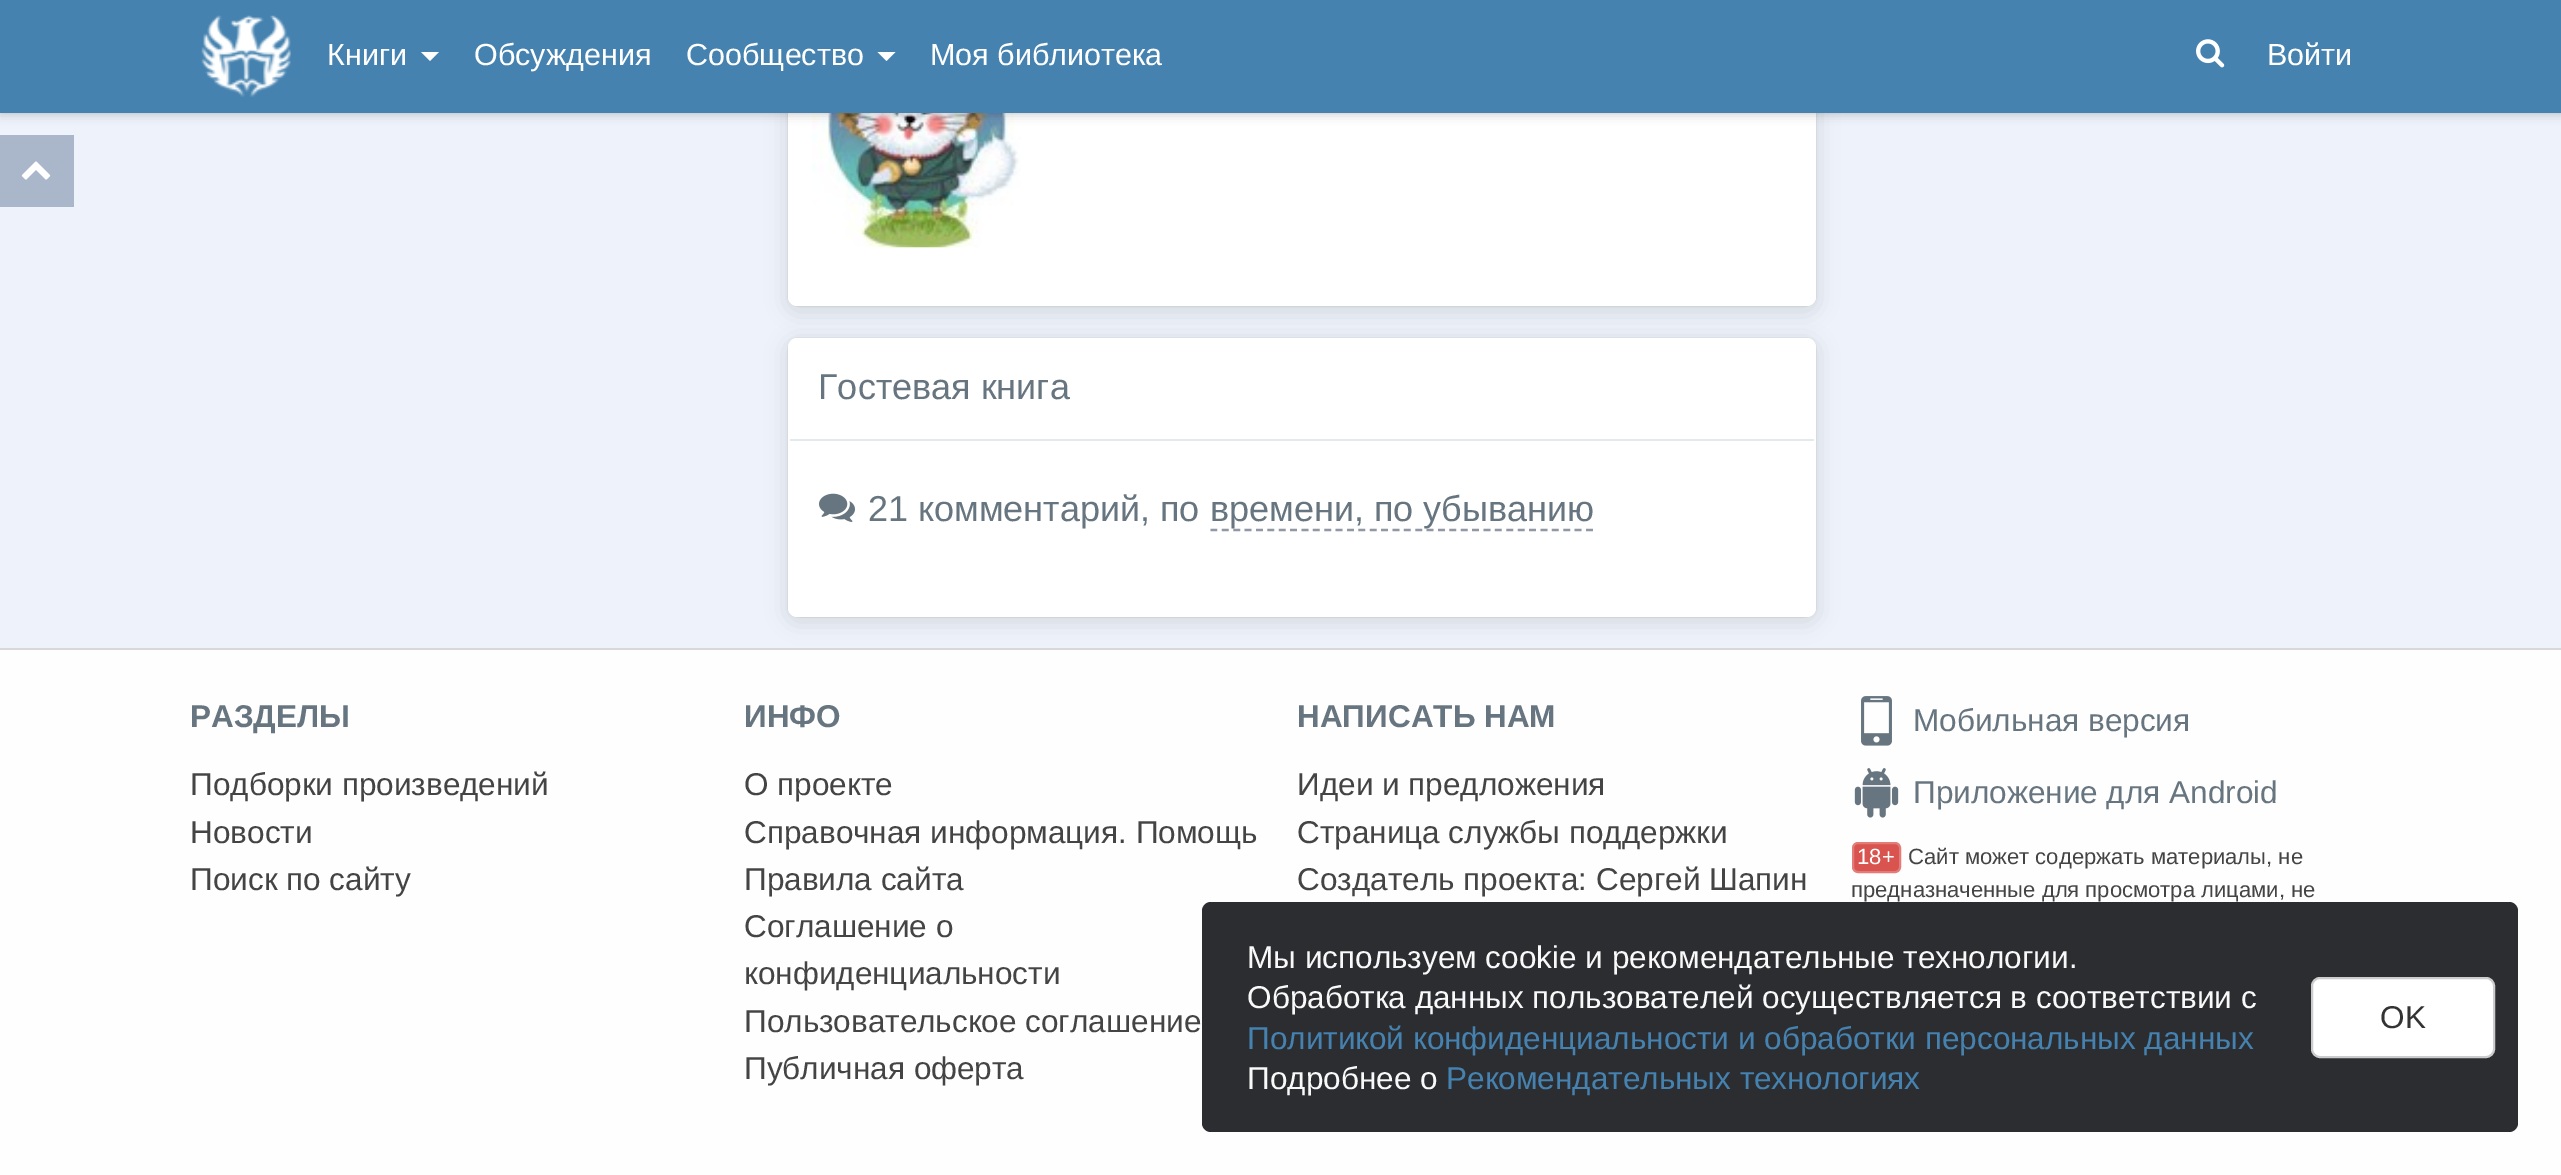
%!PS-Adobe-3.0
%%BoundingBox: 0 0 2561 1175
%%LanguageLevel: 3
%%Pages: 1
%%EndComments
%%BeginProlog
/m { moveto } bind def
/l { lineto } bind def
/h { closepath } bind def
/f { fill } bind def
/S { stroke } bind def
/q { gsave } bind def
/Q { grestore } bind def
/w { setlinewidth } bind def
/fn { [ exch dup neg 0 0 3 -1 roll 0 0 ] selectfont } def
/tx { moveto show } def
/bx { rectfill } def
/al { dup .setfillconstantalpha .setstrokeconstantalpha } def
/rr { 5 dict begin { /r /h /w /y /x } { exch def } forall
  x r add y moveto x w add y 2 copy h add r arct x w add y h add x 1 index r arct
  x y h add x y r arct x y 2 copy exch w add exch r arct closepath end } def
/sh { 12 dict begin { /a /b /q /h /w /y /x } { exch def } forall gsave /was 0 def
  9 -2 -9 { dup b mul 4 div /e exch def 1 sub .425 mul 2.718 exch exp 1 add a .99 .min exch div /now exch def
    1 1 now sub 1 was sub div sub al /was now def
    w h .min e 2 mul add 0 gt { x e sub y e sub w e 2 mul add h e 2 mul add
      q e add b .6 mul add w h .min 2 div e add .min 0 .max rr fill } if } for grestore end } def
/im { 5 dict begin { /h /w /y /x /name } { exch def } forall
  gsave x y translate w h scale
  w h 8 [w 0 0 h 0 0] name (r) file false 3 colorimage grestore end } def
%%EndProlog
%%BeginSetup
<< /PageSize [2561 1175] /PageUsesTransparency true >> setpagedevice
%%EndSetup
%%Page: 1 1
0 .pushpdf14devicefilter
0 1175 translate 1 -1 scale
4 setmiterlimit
0.933 0.953 0.984 setrgbcolor
0 0 2561 1175 bx
0 setgray
788 -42 1028 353 9 11 0.12 sh
788 -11 1028 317 9 0.5 0.12 sh
1 setgray
788 -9 1028 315 9 rr f
(image3.raw) 812 113 209 135 im
0 setgray
0 0 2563 113 0 5.5 0.25 sh
0.271 0.51 0.686 setrgbcolor
0 0 2561 113 bx
(image0.raw) 201 15 90 82 im
/LiberationSans-Regular 30.5 fn
1 setgray
(Книги) 327 65 tx
421 52 m 439 52 l 430 61 l h f
(Обсуждения) 474 65 tx
(Сообщество) 686 65 tx
877.5 52 m 895.5 52 l 886.5 61 l h f
(Моя библиотека) 930 65 tx
(image1.raw) 2196 39 29 29 im
(Войти) 2267 65 tx
0.667 0.718 0.796 setrgbcolor
0 135 74 72 bx
(image2.raw) 21 161 30 19 im
0 setgray
788 342 1028 279 9 11 0.12 sh
788 338 1028 279 9 0.5 0.12 sh
1 setgray
788 338 1028 279 9 rr f
0.894 0.918 0.925 setrgbcolor
790 439 1024 2 bx
/LiberationSans-Regular 36 fn
0.4 0.459 0.498 setrgbcolor
(Гостевая книга) 818 399 tx
(image4.raw) 819 493 36 29 im
(21 комментарий, по) 868 521 tx
0.569 0.592 0.639 setrgbcolor
2.2 w
[6.75 4.63] 0 setdash
1210.5 530 m 1593 530 l S
0.4 0.459 0.498 setrgbcolor
(времени, по убыванию) 1210 521 tx
0.996 setgray
0 650 2561 525 bx
0.847 setgray
0 648 2561 2 bx
/LiberationSans-Bold 31.5 fn
0.4 0.459 0.498 setrgbcolor
(РАЗДЕЛЫ) 190 727 tx
/LiberationSans-Regular 31.5 fn
0.267 setgray
(Подборки произведений) 190 795 tx
(Новости) 190 843 tx
(Поиск по сайту) 190 890 tx
/LiberationSans-Bold 31.5 fn
0.4 0.459 0.498 setrgbcolor
(ИНФО) 744 727 tx
/LiberationSans-Regular 31.5 fn
0.267 setgray
(О проекте) 744 795 tx
(Справочная информация. Помощь) 744 843 tx
(Правила сайта) 744 890 tx
(Соглашение о) 744 937 tx
(конфиденциальности) 744 984 tx
(Пользовательское соглашение) 744 1032 tx
(Публичная оферта) 744 1079 tx
/LiberationSans-Bold 31.5 fn
0.4 0.459 0.498 setrgbcolor
(НАПИСАТЬ НАМ) 1297 727 tx
/LiberationSans-Regular 31.5 fn
0.267 setgray
(Идеи и предложения) 1297 795 tx
(Страница службы поддержки) 1297 843 tx
(Создатель проекта: Сергей Шапин) 1297 890 tx
(image5.raw) 1861 696 31 50 im
0.4 0.459 0.498 setrgbcolor
(Мобильная версия) 1913 731 tx
(image6.raw) 1854 768 45 50 im
(Приложение для Android) 1913 803 tx
0.851 0.325 0.31 setrgbcolor
1853 843 47 29 5 rr q f Q
0.886 0.486 0.475 setrgbcolor
2 w
[] 0 setdash
S
/LiberationSans-Regular 22.05 fn
1 setgray
(18+) 1857 864 tx
0.267 setgray
(Сайт может содержать материалы, не) 1908 864 tx
(предназначенные для просмотра лицами, не) 1851 897 tx
0.169 0.176 0.192 setrgbcolor
1202 902 1316 230 9 rr f
/LiberationSans-Regular 31.5 fn
0.976 setgray
(Мы используем cookie и рекомендательные технологии.) 1247 968 tx
(Обработка данных пользователей осуществляется в соответствии с) 1247 1008 tx
0.271 0.51 0.686 setrgbcolor
(Политикой конфиденциальности и обработки персональных данных) 1247 1049 tx
0.976 setgray
(Подробнее о) 1247 1089 tx
0.271 0.51 0.686 setrgbcolor
(Рекомендательных технологиях) 1446 1089 tx
1 setgray
2312 978 182 79 8 rr q f Q
0.8 setgray
S
0.2 setgray
(OK) 2380 1028 tx
.poppdf14devicefilter showpage
%%EOF
